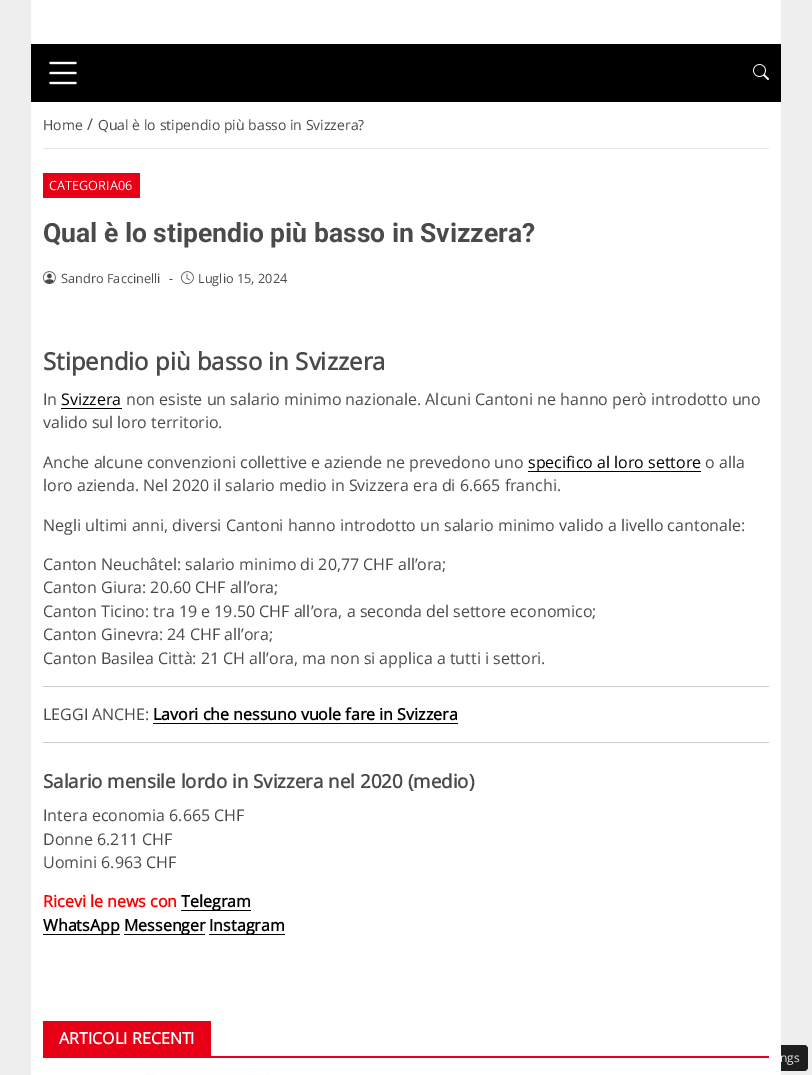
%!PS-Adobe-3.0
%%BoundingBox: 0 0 812 1075
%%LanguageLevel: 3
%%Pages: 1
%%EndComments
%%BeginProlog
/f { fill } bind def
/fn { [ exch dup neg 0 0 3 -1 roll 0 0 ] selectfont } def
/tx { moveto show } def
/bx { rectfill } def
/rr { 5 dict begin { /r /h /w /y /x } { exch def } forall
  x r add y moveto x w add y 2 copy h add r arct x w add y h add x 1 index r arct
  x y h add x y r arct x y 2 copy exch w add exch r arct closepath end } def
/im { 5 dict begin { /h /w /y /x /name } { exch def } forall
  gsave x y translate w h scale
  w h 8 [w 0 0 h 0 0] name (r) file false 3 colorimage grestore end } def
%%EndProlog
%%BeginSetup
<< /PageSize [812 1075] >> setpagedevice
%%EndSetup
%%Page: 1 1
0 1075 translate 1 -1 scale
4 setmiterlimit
0.933 setgray
0 0 812 1075 bx
1 setgray
31 0 750 44 bx
0 setgray
31 44 750 58 bx
(image0.raw) 49 61 28 24 im
(image1.raw) 753 64 16 16 im
0.118 setgray
660 1045 148 26 4 rr f
1 setgray
31 102 750 973 bx
0.902 setgray
43 148 726 1 bx
/OpenSans-Regular 14 fn
0.29 setgray
(Home) 43 130 tx
/OpenSans-Regular 16 fn
(/) 87 130 tx
/OpenSans-Regular 14 fn
(Qual è lo stipendio più basso in Svizzera?) 98 130 tx
0.91 0 0.086 setrgbcolor
43 173 97 25 bx
/OpenSans-Regular 12.75 fn
1 setgray
(CATEGORIA06) 49 190 tx
/Roboto-Bold 26.5 fn
0.29 setgray
(Qual è lo stipendio più basso in Svizzera?) 43 242 tx
(image2.raw) 43 271 13 13 im
/OpenSans-Regular 12.75 fn
(Sandro Faccinelli) 61 283 tx
(-) 169 283 tx
(image3.raw) 181 271 13 13 im
(Luglio 15, 2024) 198 283 tx
/OpenSans-Bold 24 fn
(Stipendio più basso in Svizzera) 43 370 tx
/OpenSans-Regular 16 fn
(In) 43 405 tx
0 setgray
(Svizzera) 61 405 tx
61 408 61 1 bx
0.29 setgray
(non esiste un salario minimo nazionale. Alcuni Cantoni ne hanno però introdotto uno) 126 405 tx
(valido sul loro territorio.) 43 428 tx
(Anche alcune convenzioni collettive e aziende ne prevedono uno) 43 468 tx
0 setgray
528 471 173 1 bx
(specifico al loro settore) 528 468 tx
0.29 setgray
(o alla) 705 468 tx
(loro azienda. Nel 2020 il salario medio in Svizzera era di 6.665 franchi.) 43 491 tx
(Negli ultimi anni, diversi Cantoni hanno introdotto un salario minimo valido a livello cantonale:) 43 531 tx
(Canton Neuchâtel: salario minimo di 20,77 CHF all’ora;) 43 570 tx
(Canton Giura: 20.60 CHF all’ora;) 43 593 tx
(Canton Ticino: tra 19 e 19.50 CHF all’ora, a seconda del settore economico;) 43 617 tx
(Canton Ginevra: 24 CHF all’ora;) 43 640 tx
(Canton Basilea Città: 21 CH all’ora, ma non si applica a tutti i settori.) 43 664 tx
0.8 setgray
43 686 726 1 bx
0.29 setgray
(LEGGI ANCHE:) 43 720 tx
/OpenSans-Bold 16 fn
0 setgray
(Lavori che nessuno vuole fare in Svizzera) 153 720 tx
153 723 305 1 bx
0.8 setgray
43 742 726 1 bx
/OpenSans-Bold 18.75 fn
0.29 setgray
(Salario mensile lordo in Svizzera nel 2020 \(medio\)) 43 788 tx
/OpenSans-Regular 16 fn
(Intera economia 6.665 CHF) 43 821 tx
(Donne 6.211 CHF) 43 845 tx
(Uomini 6.963 CHF) 43 868 tx
/OpenSans-Bold 16 fn
1 0 0 setrgbcolor
(Ricevi le news con) 43 907 tx
0 setgray
181 910 70 1 bx
(Telegram) 181 907 tx
43 934 77 1 bx
(WhatsApp) 43 931 tx
124 934 81 1 bx
(Messenger) 124 931 tx
209 934 76 1 bx
(Instagram) 209 931 tx
0.91 0 0.086 setrgbcolor
43 1056 726 2 bx
43 1021 168 35 bx
1 setgray
(ARTICOLI RECENTI) 59 1044 tx
(image4.raw) 146 1074 123 1 im
/OpenSans-Regular 12 fn
0.89 0.882 0.882 setrgbcolor
(ngs) 780 1062 tx
showpage
%%EOF
